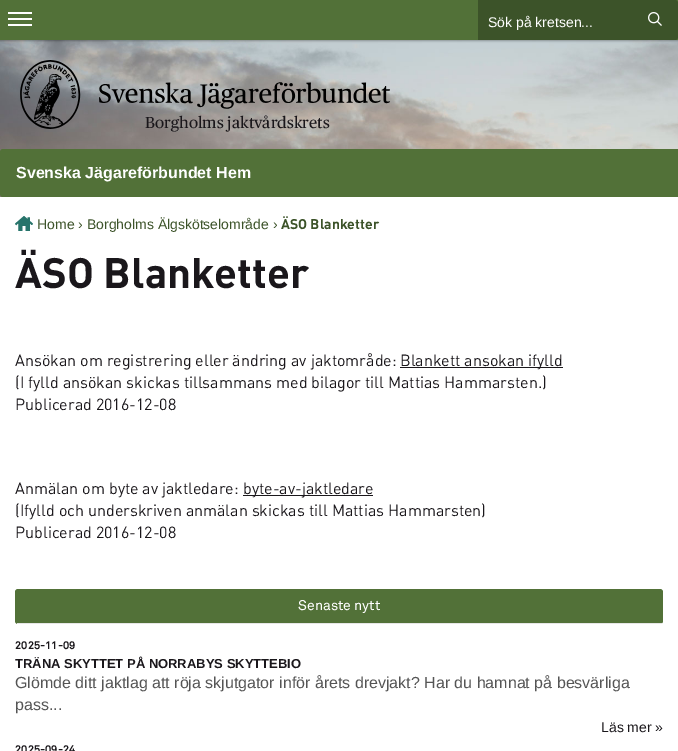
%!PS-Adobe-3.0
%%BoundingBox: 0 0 678 751
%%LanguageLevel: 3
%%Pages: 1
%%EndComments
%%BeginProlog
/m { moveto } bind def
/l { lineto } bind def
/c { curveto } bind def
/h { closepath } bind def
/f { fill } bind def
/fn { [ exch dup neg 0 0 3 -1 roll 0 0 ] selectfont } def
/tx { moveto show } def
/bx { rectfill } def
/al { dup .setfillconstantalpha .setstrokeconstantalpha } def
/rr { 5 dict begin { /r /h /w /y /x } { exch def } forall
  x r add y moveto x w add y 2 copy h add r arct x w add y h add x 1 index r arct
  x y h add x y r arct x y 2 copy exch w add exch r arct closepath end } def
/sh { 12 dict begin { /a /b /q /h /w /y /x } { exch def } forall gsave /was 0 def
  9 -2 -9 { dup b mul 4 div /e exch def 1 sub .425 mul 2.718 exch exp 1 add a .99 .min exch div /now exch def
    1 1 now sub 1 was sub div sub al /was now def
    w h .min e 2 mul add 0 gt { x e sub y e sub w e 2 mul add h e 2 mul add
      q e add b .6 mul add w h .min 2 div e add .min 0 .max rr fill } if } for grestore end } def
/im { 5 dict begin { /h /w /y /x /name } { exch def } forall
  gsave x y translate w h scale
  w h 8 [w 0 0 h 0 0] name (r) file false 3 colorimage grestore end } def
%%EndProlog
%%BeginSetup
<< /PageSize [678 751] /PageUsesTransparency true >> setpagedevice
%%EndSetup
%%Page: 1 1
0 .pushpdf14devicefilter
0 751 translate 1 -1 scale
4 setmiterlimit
1 setgray
0 0 678 751 bx
(image0.raw) 0 40 678 157 im
0 setgray
-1 -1 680 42 0 1 0.3 sh
0.322 0.443 0.22 setrgbcolor
0 0 678 40 bx
1 setgray
8 12 24 2 bx
8 18 24 2 bx
8 24 24 2 bx
0.235 0.325 0.161 setrgbcolor
478 0 m 675 0 l 676.5 0 678 1.5 678 3 c 678 37 l 678 38.5 676.5 40 675 40 c 478 40 l h f
/LiberationSans-Regular 14 fn
1 setgray
(Sök på kretsen...) 488 27 tx
(image1.raw) 648 12 14 14 im
(image2.raw) 20 60 370 69 im
/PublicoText-Regular 16 fn
0.102 0.09 0.106 setrgbcolor
(Borgholms jaktvårdskrets) 145 128 tx
0.322 0.443 0.22 setrgbcolor
3 149 m 678 149 l 678 197 l 3 197 l 1.5 197 0 195.5 0 194 c 0 152 l 0 150.5 1.5 149 3 149 c h f
/LiberationSans-Bold 16 fn
1 setgray
(Svenska Jägareförbundet Hem) 16 178 tx
(image3.raw) 15 216 18 15 im
/LiberationSans-Regular 14 fn
0.235 0.325 0.161 setrgbcolor
(Home › Borgholms Älgskötselområde ›) 37 229 tx
/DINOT-Bold 14 fn
(ÄSO Blanketter) 281 229 tx
/DINOT-Bold 42 fn
0.102 0.09 0.106 setrgbcolor
(ÄSO Blanketter) 15 288 tx
/DINOT-Regular 16 fn
(Ansökan om registrering eller ändring av jaktområde:) 15 366 tx
400 367 163 1 bx
(Blankett ansokan ifylld) 400 366 tx
(\(I fylld ansökan skickas tillsammans med bilagor till Mattias Hammarsten.\)) 15 388 tx
(Publicerad 2016-12-08) 15 410 tx
(Anmälan om byte av jaktledare:) 15 494 tx
243 495 130 1 bx
(byte-av-jaktledare) 243 494 tx
(\(Ifylld och underskriven anmälan skickas till Mattias Hammarsten\)) 15 516 tx
(Publicerad 2016-12-08) 15 538 tx
0.322 0.443 0.22 setrgbcolor
15 589 648 35 3 rr f
0.902 setgray
17 623 645 1 bx
/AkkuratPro-Regular 14 fn
1 setgray
(Senaste nytt) 298 610 tx
/AkkuratPro-Bold 11 fn
0.102 0.09 0.106 setrgbcolor
(2025-11-09) 15 649 tx
/LiberationSans-Bold 13 fn
(TRÄNA SKYTTET PÅ NORRABYS SKYTTEBIO) 15 668 tx
/LiberationSans-Regular 16 fn
0.333 setgray
(Glömde ditt jaktlag att röja skjutgator inför årets drevjakt? Har du hamnat på besvärliga) 15 688 tx
(pass...) 15 710 tx
/LiberationSans-Regular 14 fn
0.102 0.09 0.106 setrgbcolor
(Läs mer ») 601 732 tx
/AkkuratPro-Bold 11 fn
(2025-09-24) 15 753 tx
.poppdf14devicefilter showpage
%%EOF
